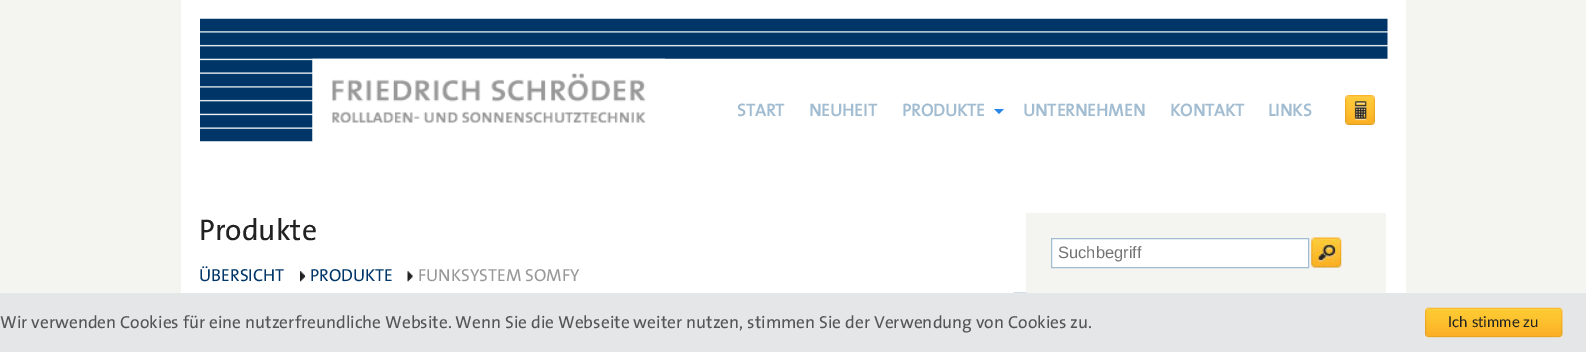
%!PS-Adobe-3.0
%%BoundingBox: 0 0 1586 352
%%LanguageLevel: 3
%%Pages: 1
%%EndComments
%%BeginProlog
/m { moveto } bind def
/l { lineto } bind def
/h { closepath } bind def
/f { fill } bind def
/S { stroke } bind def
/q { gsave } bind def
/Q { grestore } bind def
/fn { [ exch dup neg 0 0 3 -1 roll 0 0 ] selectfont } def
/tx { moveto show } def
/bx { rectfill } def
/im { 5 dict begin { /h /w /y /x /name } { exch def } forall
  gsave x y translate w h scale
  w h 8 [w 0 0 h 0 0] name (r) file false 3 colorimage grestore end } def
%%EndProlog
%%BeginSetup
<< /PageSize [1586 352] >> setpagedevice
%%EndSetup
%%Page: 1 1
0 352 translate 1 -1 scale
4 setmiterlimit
0.957 0.957 0.945 setrgbcolor
0 0 1586 352 bx
1 setgray
181 0 1225 293 bx
(image0.raw) 200 18 1188 124 im
(image1.raw) 312 58 353 83 im
/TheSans-Bold 17.5 fn
0.635 0.737 0.824 setrgbcolor
(START) 737 116 tx
(NEUHEIT) 809 116 tx
(PRODUKTE) 902 116 tx
0.165 0.522 0.91 setrgbcolor
994 109 m 1004 109 l 999 114 l h f
0.635 0.737 0.824 setrgbcolor
(UNTERNEHMEN) 1023 116 tx
(KONTAKT) 1170 116 tx
(LINKS) 1268 116 tx
(image2.raw) 1345 95 30 30 im
/TheSans-Regular 30 fn
0.133 setgray
(Produkte) 199 240 tx
/TheSans-Regular 17.5 fn
0 0.212 0.404 setrgbcolor
(ÜBERSICHT) 199 281 tx
(image3.raw) 300 271 5 11 im
(PRODUKTE) 310 281 tx
(image4.raw) 407 271 6 11 im
0.6 setgray
(FUNKSYSTEM SOMFY) 418 281 tx
0.957 0.957 0.945 setrgbcolor
1026 213 360 80 bx
1 setgray
1051.5 238.5 m 1308.5 238.5 l 1308.5 267.5 l 1051.5 267.5 l h q f Q
0.635 0.737 0.824 setrgbcolor
S
/LiberationSans-Regular 16.5 fn
0.459 setgray
(Suchbegriff) 1058 258 tx
0.937 setgray
1311 238 30 30 bx
(image5.raw) 1311 237 31 31 im
(image6.raw) 1013 292 14 1 im
0.894 0.902 0.91 setrgbcolor
0 293 1586 59 bx
/TheSans-Regular 17.5 fn
0.333 setgray
(Wir verwenden Cookies für eine nutzerfreundliche Website. Wenn Sie die Webseite weiter nutzen, stimmen Sie der Verwendung von Cookies zu.) 0 328 tx
0.937 setgray
1425 308 138 30 bx
(image7.raw) 1425 307 138 31 im
/Lato-Regular 15 fn
0.133 setgray
(Ich stimme zu) 1448 327 tx
showpage
%%EOF
